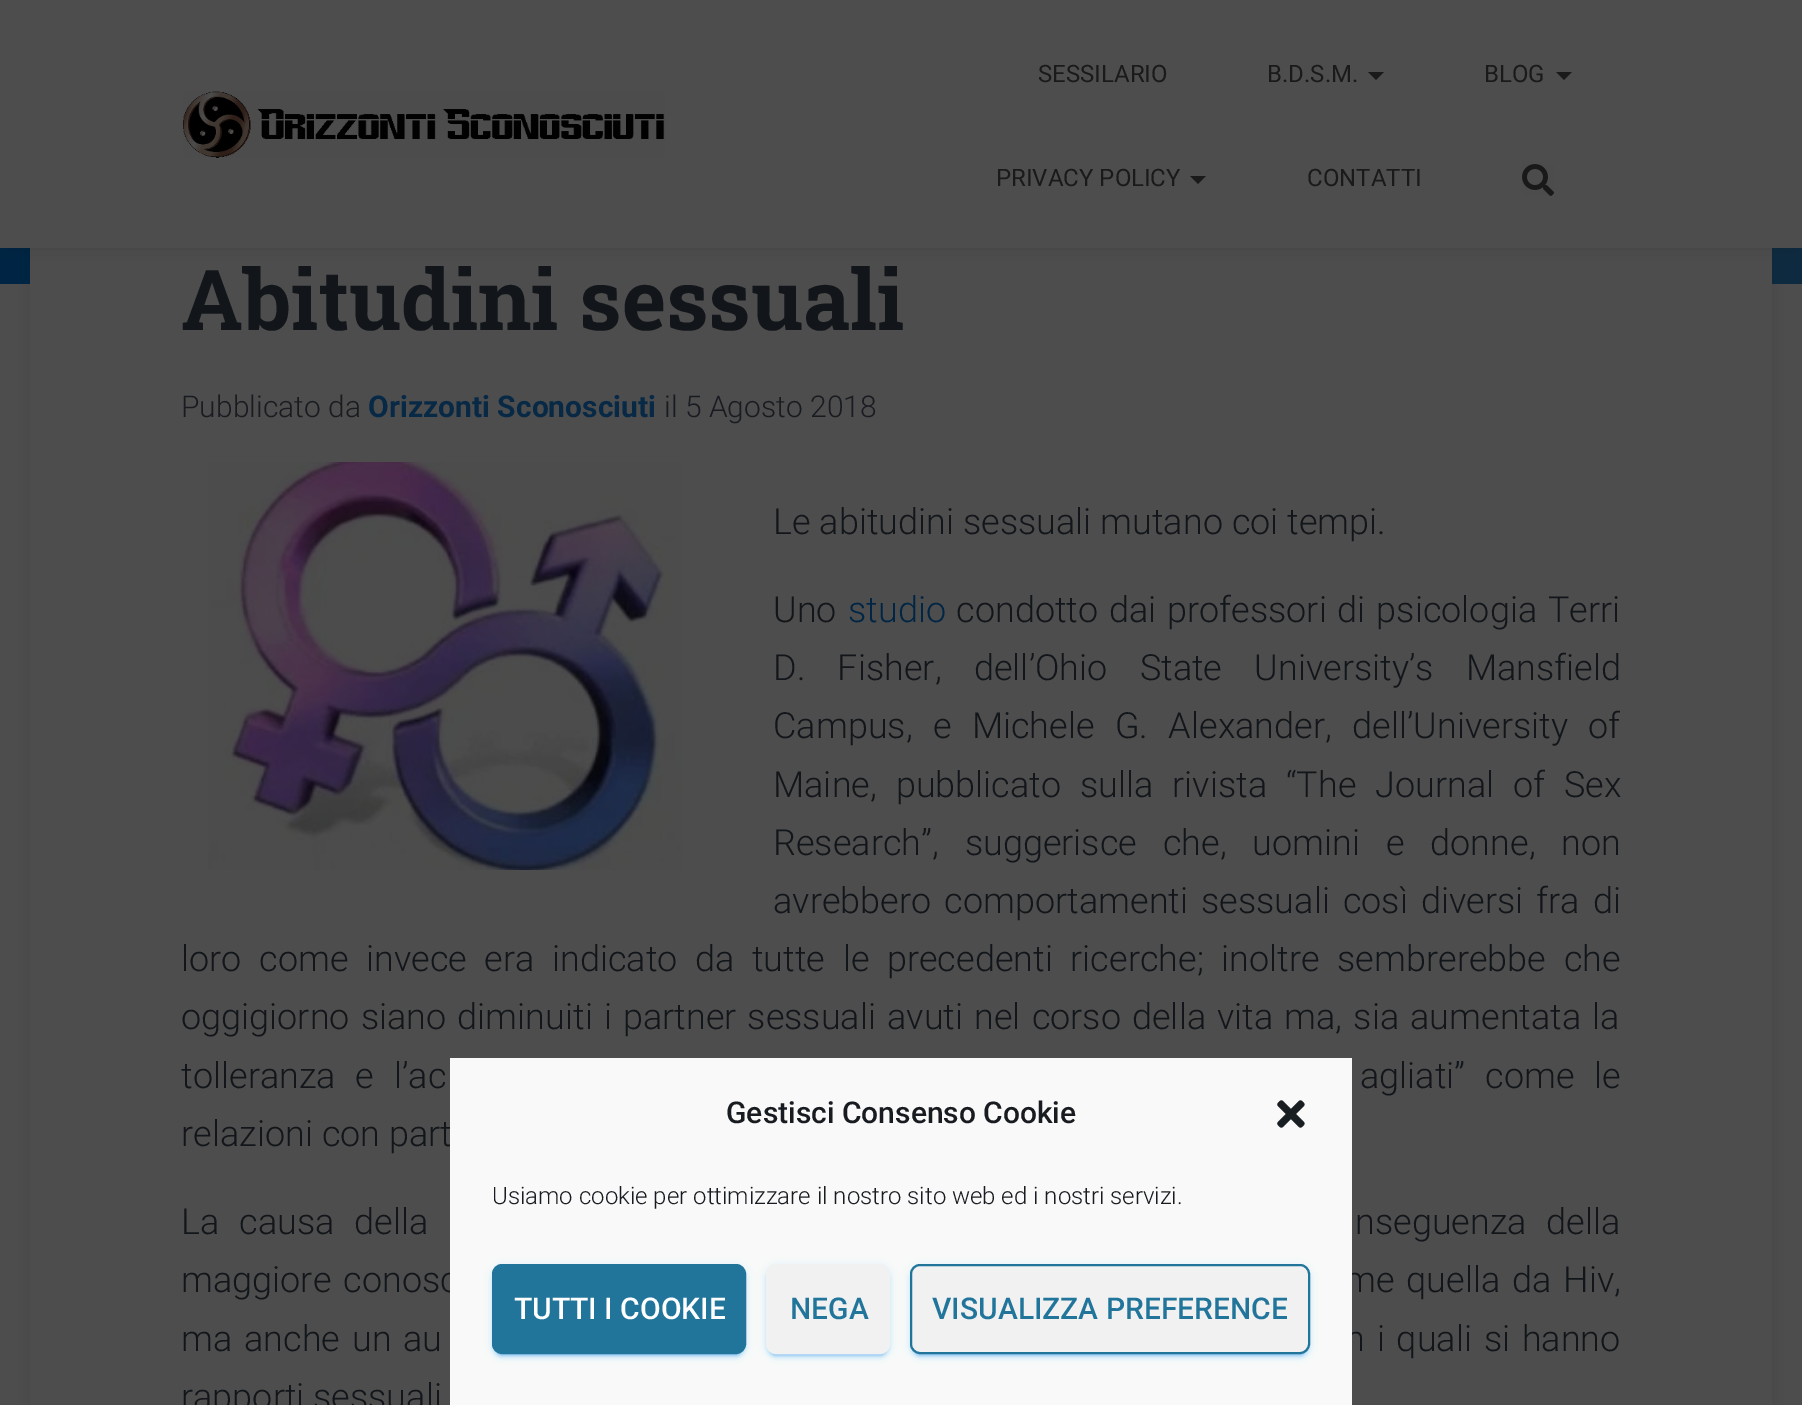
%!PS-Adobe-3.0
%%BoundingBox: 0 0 1802 1405
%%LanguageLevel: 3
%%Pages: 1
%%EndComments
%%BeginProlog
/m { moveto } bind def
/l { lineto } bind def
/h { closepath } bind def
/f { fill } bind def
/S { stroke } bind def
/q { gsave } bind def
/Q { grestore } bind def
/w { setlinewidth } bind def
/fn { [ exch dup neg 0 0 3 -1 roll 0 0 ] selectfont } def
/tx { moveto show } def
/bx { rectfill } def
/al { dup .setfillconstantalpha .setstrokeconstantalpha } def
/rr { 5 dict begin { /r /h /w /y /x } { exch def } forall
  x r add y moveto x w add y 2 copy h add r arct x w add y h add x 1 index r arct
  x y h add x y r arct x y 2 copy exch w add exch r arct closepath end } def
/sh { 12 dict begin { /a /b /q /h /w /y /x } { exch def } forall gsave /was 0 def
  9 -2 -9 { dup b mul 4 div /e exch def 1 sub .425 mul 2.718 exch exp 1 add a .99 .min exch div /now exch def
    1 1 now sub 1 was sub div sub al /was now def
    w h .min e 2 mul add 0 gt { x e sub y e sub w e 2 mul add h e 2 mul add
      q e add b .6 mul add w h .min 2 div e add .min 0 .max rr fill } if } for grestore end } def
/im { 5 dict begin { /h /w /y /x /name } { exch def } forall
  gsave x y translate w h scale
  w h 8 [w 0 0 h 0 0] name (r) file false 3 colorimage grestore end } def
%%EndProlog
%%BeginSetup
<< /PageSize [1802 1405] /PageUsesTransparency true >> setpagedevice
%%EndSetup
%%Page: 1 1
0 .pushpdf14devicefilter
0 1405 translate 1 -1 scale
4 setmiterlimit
0.302 setgray
0 0 1802 1405 bx
q 0 248 m 1802 248 l 1802 284 l 0 284 l h clip newpath
<< /ShadingType 2 /ColorSpace /DeviceRGB /Coords [274 558 1529 -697] /Extend [true true] /Function << /FunctionType 2 /Domain [0 1] /C0 [0 0.145 0.271] /C1 [0.078 0.176 0.243] /N 1 >> >> shfill Q
0 setgray
40 190 1722 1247 2 10 0.2 sh
0.302 setgray
30 248 1742 1157 bx
0 setgray
12 14 1778 224 0 10 0.42 sh
0.302 setgray
0 0 1802 248 bx
(image0.raw) 183 91 482 67 im
/Roboto-Regular 24 fn
0.102 setgray
(SESSILARIO) 1038 82 tx
(B.D.S.M.) 1267 82 tx
1368 72 m 1384 72 l 1376 80 l h f
(BLOG) 1484 82 tx
1556 72 m 1572 72 l 1564 80 l h f
(PRIVACY POLICY) 996 186 tx
1190 176 m 1206 176 l 1198 184 l h f
(CONTATTI) 1307 186 tx
(image1.raw) 1522 164 32 32 im
/RobotoSlab-Bold 84 fn
0.071 0.086 0.102 setrgbcolor
(Abitudini sessuali) 181 330 tx
/Roboto-Light 30 fn
0.094 0.106 0.125 setrgbcolor
(Pubblicato da) 181 417 tx
/Roboto-Bold 30 fn
0.031 0.161 0.275 setrgbcolor
(Orizzonti Sconosciuti) 368 417 tx
/Roboto-Light 30 fn
0.094 0.106 0.125 setrgbcolor
(il 5 Agosto 2018) 664 417 tx
(image2.raw) 208 462 474 408 im
/Roboto-Light 36 fn
0.071 0.086 0.102 setrgbcolor
(Le abitudini sessuali mutano coi tempi.) 773 534 tx
(Uno) 773 622 tx
0 0.145 0.271 setrgbcolor
(studio) 848 622 tx
0.071 0.086 0.102 setrgbcolor
956 622 m 2 0 32 (condotto dai professori di psicologia Terri) widthshow
773 680 m 23.5 0 32 (D. Fisher, dell’Ohio State University’s Mansfield) widthshow
773 738 m 11.5 0 32 (Campus, e Michele G. Alexander, dell’University of) widthshow
773 797 m 10 0 32 (Maine, pubblicato sulla rivista “The Journal of Sex) widthshow
773 855 m 17 0 32 (Research”, suggerisce che, uomini e donne, non) widthshow
773 913 m 4.25 0 32 (avrebbero comportamenti sessuali così diversi fra di) widthshow
181 971 m 8.75 0 32 (loro come invece era indicato da tutte le precedenti ricerche; inoltre sembrerebbe che) widthshow
181 1029 m 2.25 0 32 (oggigiorno siano diminuiti i partner sessuali avuti nel corso della vita ma, sia aumentata la) widthshow
181 1088 m 11 0 32 (tolleranza e l’ac) widthshow
1360 1088 m 11 0 32 (agliati” come le) widthshow
(relazioni con part) 181 1146 tx
181 1234 m 11 0 32 (La causa della) widthshow
1355 1234 m 11 0 32 (nseguenza della) widthshow
181 1292 m 3 0 32 (maggiore conosc) widthshow
1344 1292 m 3 0 32 (me quella da Hiv,) widthshow
181 1351 m 3 0 32 (ma anche un au) widthshow
1345 1351 m 3 0 32 (n i quali si hanno) widthshow
(rapporti sessuali) 181 1409 tx
0.976 setgray
450 1058 902 347 bx
/Roboto-Medium 30 fn
0.094 0.106 0.125 setrgbcolor
(Gestisci Consenso Cookie) 726 1123 tx
(image3.raw) 1277 1100 28 28 im
/Roboto-Light 24 fn
(Usiamo cookie per ottimizzare il nostro sito web ed i nostri servizi.) 492 1204 tx
0 0.478 0.898 setrgbcolor
492 1266 254 90 10 5 0.12 sh
496 1274 246 82 6 1 0.2 sh
492 1268 254 90 10 2 0.14 sh
0.129 0.459 0.608 setrgbcolor
493 1265 252 88 9 rr q f Q
2 w
S
/Roboto-Medium 30 fn
1 setgray
(TUTTI I COOKIE) 514 1319 tx
0 0.478 0.898 setrgbcolor
766 1266 124 90 10 5 0.12 sh
770 1274 116 82 6 1 0.2 sh
766 1268 124 90 10 2 0.14 sh
0.945 setgray
767 1265 122 88 9 rr q f Q
S
0.129 0.459 0.608 setrgbcolor
(NEGA) 790 1319 tx
0 0.478 0.898 setrgbcolor
910 1266 400 90 10 5 0.12 sh
914 1274 392 82 6 1 0.2 sh
910 1268 400 90 10 2 0.14 sh
0.945 setgray
911 1265 398 88 9 rr q f Q
0.129 0.459 0.608 setrgbcolor
S
(VISUALIZZA PREFERENCE) 932 1319 tx
.poppdf14devicefilter showpage
%%EOF
